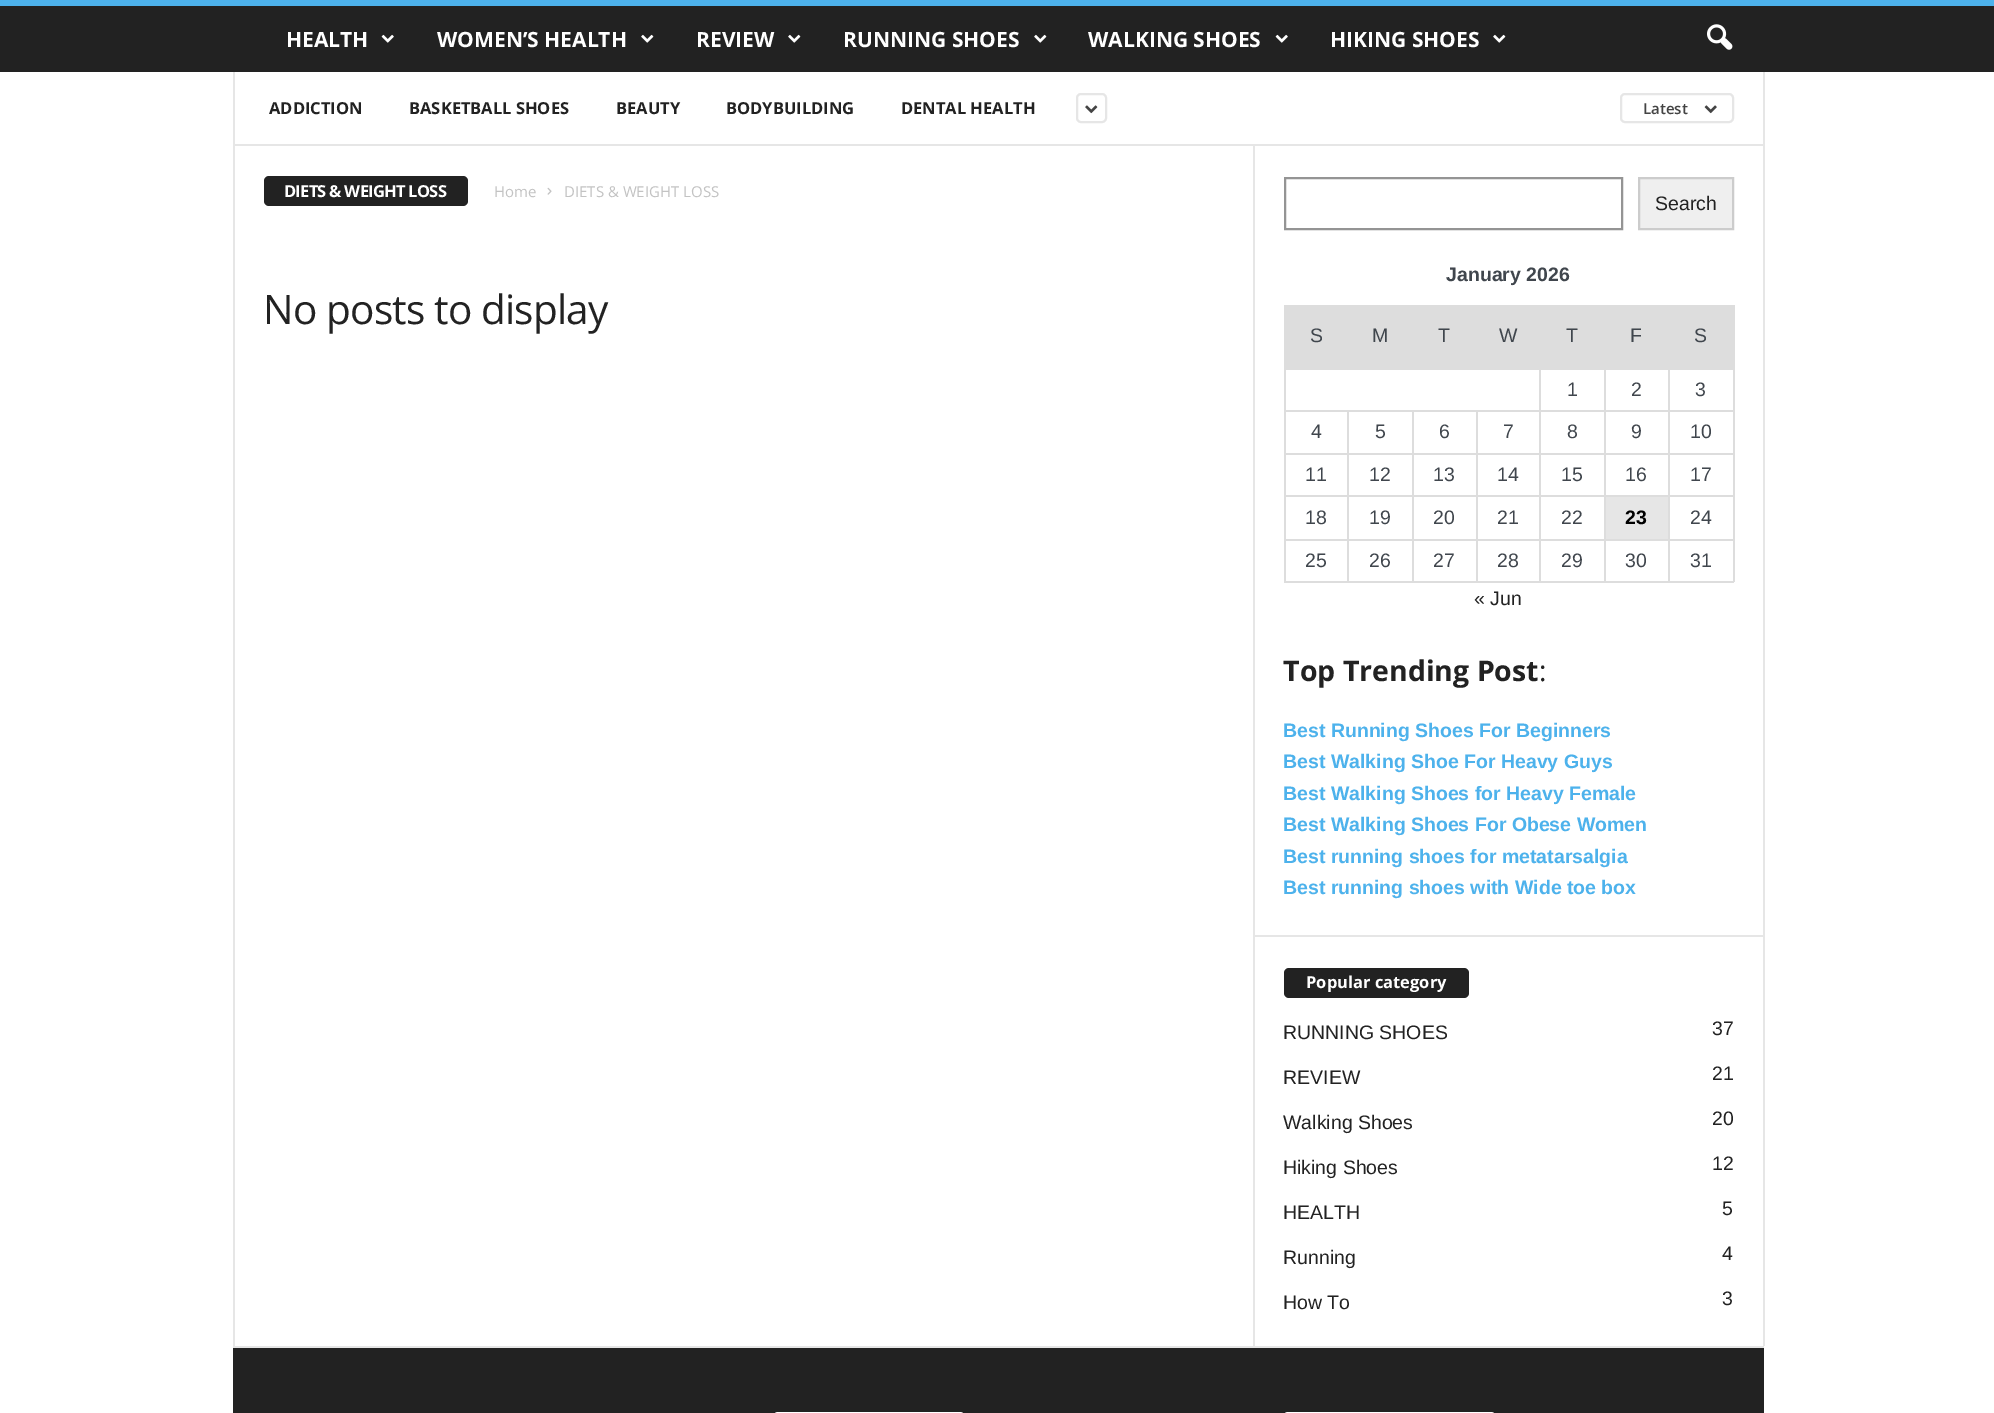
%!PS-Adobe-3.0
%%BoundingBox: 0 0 1994 1413
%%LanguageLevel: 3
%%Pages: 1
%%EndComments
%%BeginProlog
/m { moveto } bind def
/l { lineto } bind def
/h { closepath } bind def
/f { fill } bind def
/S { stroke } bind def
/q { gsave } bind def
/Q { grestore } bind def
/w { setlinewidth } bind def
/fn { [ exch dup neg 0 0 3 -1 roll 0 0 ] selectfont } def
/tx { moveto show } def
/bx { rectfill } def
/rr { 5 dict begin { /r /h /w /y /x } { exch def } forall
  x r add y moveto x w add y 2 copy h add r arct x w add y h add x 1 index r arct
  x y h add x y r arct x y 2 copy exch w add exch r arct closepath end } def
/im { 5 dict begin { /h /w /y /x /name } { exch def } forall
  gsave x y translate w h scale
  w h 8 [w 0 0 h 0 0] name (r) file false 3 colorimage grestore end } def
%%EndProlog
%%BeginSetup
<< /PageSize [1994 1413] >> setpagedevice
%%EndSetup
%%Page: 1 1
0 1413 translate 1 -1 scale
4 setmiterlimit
1 setgray
0 0 1994 1413 bx
0.133 setgray
0 6 1994 66 bx
0.302 0.698 0.925 setrgbcolor
0 0 1994 6 bx
/OpenSans-Bold 21 fn
1 setgray
(HEALTH) 286 47 tx
(image0.raw) 381 34 13 9 im
(WOMEN’S HEALTH) 437 47 tx
(image1.raw) 641 34 13 9 im
(REVIEW) 696 47 tx
(image1.raw) 788 34 13 9 im
(RUNNING SHOES) 843 47 tx
(image1.raw) 1034 34 13 9 im
(WALKING SHOES) 1088 47 tx
(image0.raw) 1275 34 13 9 im
(HIKING SHOES) 1330 47 tx
(image1.raw) 1493 34 13 9 im
(image2.raw) 1707 24 26 26 im
/OpenSans-Bold 16.5 fn
0.133 setgray
(ADDICTION) 269 114 tx
(BASKETBALL SHOES) 409 114 tx
(BEAUTY) 616 114 tx
(BODYBUILDING) 726 114 tx
(DENTAL HEALTH) 901 114 tx
0.902 setgray
2 w
1077 94 29 28 4 rr S
(image3.raw) 1085 105 13 9 im
1621 94 112 28 4 rr S
/OpenSans-SemiBold 15 fn
0.267 setgray
(Latest) 1643 114 tx
(image4.raw) 1704 105 13 9 im
0.902 setgray
233 1346 1531 2 bx
1763 72 2 1274 bx
233 144 1531 2 bx
233 72 2 1274 bx
0.133 setgray
264 176 204 30 5 rr f
/OpenSans-Bold 16.5 fn
1 setgray
284 197 m -0.75 0 (DIETS & WEIGHT LOSS) ashow
/OpenSans-Regular 15 fn
0.765 setgray
(Home) 494 197 tx
(image5.raw) 547 187 5 8 im
(DIETS & WEIGHT LOSS) 564 197 tx
/OpenSans-Regular 40.5 fn
0.133 setgray
263 324 m -0.8 0 (No posts to display) ashow
0.902 setgray
1253 146 2 1200 bx
0.58 setgray
1285 178 337 51 rectstroke
0.937 setgray
1639 178 m 1733 178 l 1733 229 l 1639 229 l h q f Q
0.8 setgray
S
/LiberationSans-Regular 19.5 fn
0.133 setgray
(Search) 1655 210 tx
/LiberationSans-Bold 19.5 fn
0.251 0.275 0.302 setrgbcolor
(January 2026) 1446 281 tx
0.867 setgray
1284 307 449 61 bx
/LiberationSans-Regular 19.5 fn
0.251 0.275 0.302 setrgbcolor
(S) 1310 342 tx
(M) 1372 342 tx
(T) 1438 342 tx
(W) 1499 342 tx
(T) 1566 342 tx
(F) 1630 342 tx
0.867 setgray
1284 305 450 2 bx
1668 368 66 2 bx
1668 410 66 2 bx
1668 453 66 2 bx
1668 495 66 2 bx
1668 539 66 2 bx
1733 539 2 43 bx
1733 495 2 45 bx
1733 453 2 44 bx
1733 410 2 45 bx
1733 368 2 43 bx
1733 305 2 64 bx
0.251 0.275 0.302 setrgbcolor
(S) 1694 342 tx
0.867 setgray
1668 581 66 2 bx
1668 539 2 43 bx
1604 539 66 2 bx
1668 495 2 45 bx
1604 495 66 2 bx
1668 453 2 44 bx
1604 453 66 2 bx
1668 410 2 45 bx
1604 410 66 2 bx
1668 368 2 43 bx
1604 368 66 2 bx
1604 581 66 2 bx
1604 539 2 43 bx
1539 539 66 2 bx
1604 495 2 45 bx
1539 495 66 2 bx
1604 453 2 44 bx
1539 453 66 2 bx
1604 410 2 45 bx
1539 410 66 2 bx
1604 368 2 43 bx
1539 368 66 2 bx
1539 581 66 2 bx
1539 539 2 43 bx
1476 539 65 2 bx
1539 495 2 45 bx
1476 495 65 2 bx
1539 453 2 44 bx
1476 453 65 2 bx
1539 410 2 45 bx
1476 410 65 2 bx
1539 368 2 43 bx
1284 368 257 2 bx
1476 581 65 2 bx
1476 539 2 43 bx
1412 539 66 2 bx
1476 495 2 45 bx
1412 495 66 2 bx
1476 453 2 44 bx
1412 453 66 2 bx
1476 410 2 45 bx
1412 410 66 2 bx
1412 581 66 2 bx
1412 539 2 43 bx
1347 539 66 2 bx
1412 495 2 45 bx
1347 495 66 2 bx
1412 453 2 44 bx
1347 453 66 2 bx
1412 410 2 45 bx
1347 410 66 2 bx
1347 581 66 2 bx
1347 539 2 43 bx
1284 539 65 2 bx
1347 495 2 45 bx
1284 495 65 2 bx
1347 453 2 44 bx
1284 453 65 2 bx
1347 410 2 45 bx
1284 410 65 2 bx
1284 581 65 2 bx
1284 539 2 43 bx
1284 495 2 45 bx
1284 453 2 44 bx
1284 410 2 45 bx
1284 368 2 43 bx
0.251 0.275 0.302 setrgbcolor
(1) 1567 396 tx
(2) 1631 396 tx
(3) 1695 396 tx
(4) 1311 438 tx
(5) 1375 438 tx
(6) 1439 438 tx
(7) 1503 438 tx
(8) 1567 438 tx
(9) 1631 438 tx
(10) 1690 438 tx
(11) 1305 481 tx
(12) 1369 481 tx
(13) 1433 481 tx
(14) 1497 481 tx
(15) 1561 481 tx
(16) 1625 481 tx
(17) 1690 481 tx
(18) 1305 524 tx
(19) 1369 524 tx
(20) 1433 524 tx
(21) 1497 524 tx
(22) 1561 524 tx
0.902 setgray
1606 497 62 42 bx
/LiberationSans-Bold 19.5 fn
0 setgray
(23) 1625 524 tx
/LiberationSans-Regular 19.5 fn
0.251 0.275 0.302 setrgbcolor
(24) 1690 524 tx
(25) 1305 567 tx
(26) 1369 567 tx
(27) 1433 567 tx
(28) 1497 567 tx
(29) 1561 567 tx
(30) 1625 567 tx
(31) 1690 567 tx
0.133 setgray
(« Jun) 1474 605 tx
/OpenSans-Bold 28.5 fn
(Top Trending Post) 1283 681 tx
/OpenSans-Regular 28.5 fn
(:) 1539 681 tx
/LiberationSans-Bold 19.5 fn
0.302 0.698 0.925 setrgbcolor
(Best Running Shoes For Beginners) 1283 737 tx
(Best Walking Shoe For Heavy Guys) 1283 768 tx
(Best Walking Shoes for Heavy Female) 1283 800 tx
(Best Walking Shoes For Obese Women) 1283 831 tx
(Best running shoes for metatarsalgia) 1283 863 tx
(Best running shoes with Wide toe box) 1283 894 tx
0.902 setgray
1254 935 509 2 bx
0.133 setgray
1284 968 185 30 5 rr f
/OpenSans-Bold 16.5 fn
1 setgray
(Popular category) 1306 988 tx
/LiberationSans-Regular 19.5 fn
0.133 setgray
(RUNNING SHOES) 1283 1039 tx
(37) 1712 1035 tx
(REVIEW) 1283 1084 tx
(21) 1712 1080 tx
(Walking Shoes) 1283 1129 tx
(20) 1712 1125 tx
(Hiking Shoes) 1283 1174 tx
(12) 1712 1170 tx
(HEALTH) 1283 1219 tx
(5) 1722 1215 tx
(Running) 1283 1264 tx
(4) 1722 1260 tx
(How To) 1283 1309 tx
(3) 1722 1305 tx
233 1348 1531 65 bx
1 setgray
773 1412 192 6 5 rr f
1283 1412 213 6 5 rr f
showpage
%%EOF
